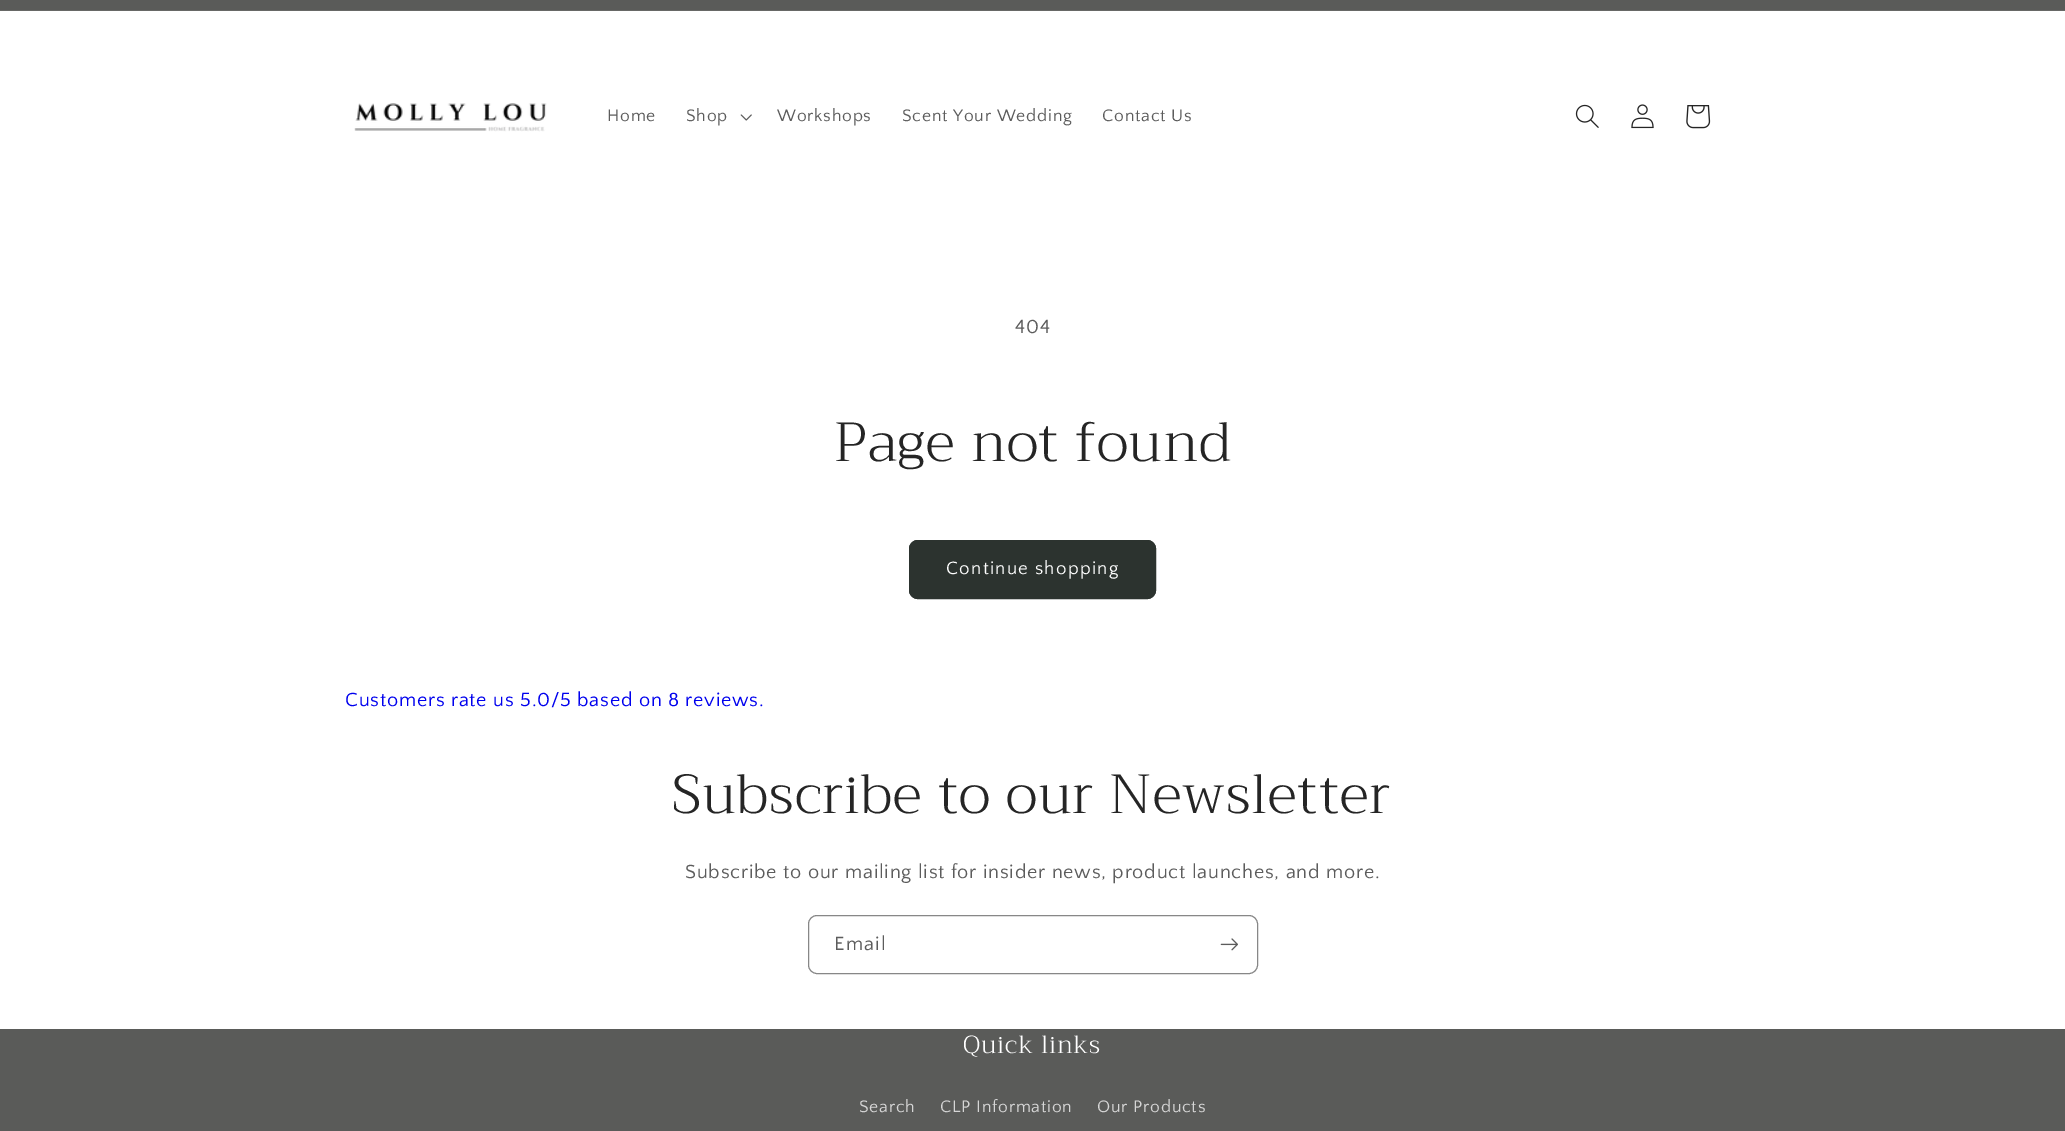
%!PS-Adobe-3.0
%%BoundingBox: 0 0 2065 1131
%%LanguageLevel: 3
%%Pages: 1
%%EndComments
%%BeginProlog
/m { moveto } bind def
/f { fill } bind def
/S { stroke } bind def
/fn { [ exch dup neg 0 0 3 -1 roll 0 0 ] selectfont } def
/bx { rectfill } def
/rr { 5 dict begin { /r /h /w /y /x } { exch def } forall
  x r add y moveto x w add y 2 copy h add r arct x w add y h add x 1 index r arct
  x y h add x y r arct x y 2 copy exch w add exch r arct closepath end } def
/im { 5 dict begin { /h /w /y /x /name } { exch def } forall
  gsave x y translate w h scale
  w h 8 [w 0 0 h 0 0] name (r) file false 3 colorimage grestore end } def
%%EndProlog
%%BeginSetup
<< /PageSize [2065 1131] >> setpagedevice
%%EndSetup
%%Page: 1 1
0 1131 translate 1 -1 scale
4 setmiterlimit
1 setgray
0 0 2065 1131 bx
0.353 0.357 0.349 setrgbcolor
0 0 2065 10 bx
0.404 0.408 0.4 setrgbcolor
0 10 2065 1 bx
(image0.raw) 354 103 193 29 im
/QuattrocentoSans-Regular 17.5 fn
0.361 setgray
607 121 m 0.75 0 (Home) ashow
686 121 m 0.75 0 (Shop) ashow
(image1.raw) 740 114 12 7 im
777 121 m 0.75 0 (Workshops) ashow
902 121 m 0.75 0 (Scent Your Wedding) ashow
1102 121 m 0.75 0 (Contact Us) ashow
(image2.raw) 1575 104 24 24 im
(image3.raw) 1631 104 23 25 im
(image4.raw) 1686 105 25 24 im
/QuattrocentoSans-Regular 20 fn
1015 333 m 0.75 0 (404) ashow
/Trirong-Light 55 fn
0.145 setgray
834 461 m 0.8 0 (Page not found) ashow
0.173 0.2 0.184 setrgbcolor
909 540 247 59 9 rr f
909.5 540.5 246 58 8.5 rr S
/QuattrocentoSans-Regular 18.75 fn
1 setgray
946 574 m 1.25 0 (Continue shopping) ashow
/QuattrocentoSans-Regular 20 fn
0 0 0.933 setrgbcolor
345 706 m 0.75 0 (Customers rate us 5.0/5 based on 8 reviews.) ashow
/Trirong-Light 55 fn
0.145 setgray
672 813 m 0.8 0 (Subscribe to our Newsletter) ashow
/QuattrocentoSans-Regular 20 fn
0.361 setgray
685 878 m 0.75 0 (Subscribe to our mailing list for insider news, product launches, and more.) ashow
0.529 setgray
808.5 915.5 449 58 8.5 rr S
0.361 setgray
834 950 m 1.25 0 (Email) ashow
(image5.raw) 1220 938 18 13 im
0.353 0.357 0.349 setrgbcolor
0 1029 2065 102 bx
/Trirong-Light 24.75 fn
1 setgray
963 1053 m 0.8 0 (Quick links) ashow
/QuattrocentoSans-Regular 17.5 fn
0.839 setgray
859 1112 m 0.75 0 (Search) ashow
940 1112 m 0.75 0 (CLP Information) ashow
1097 1112 m 0.75 0 (Our Products) ashow
showpage
%%EOF
